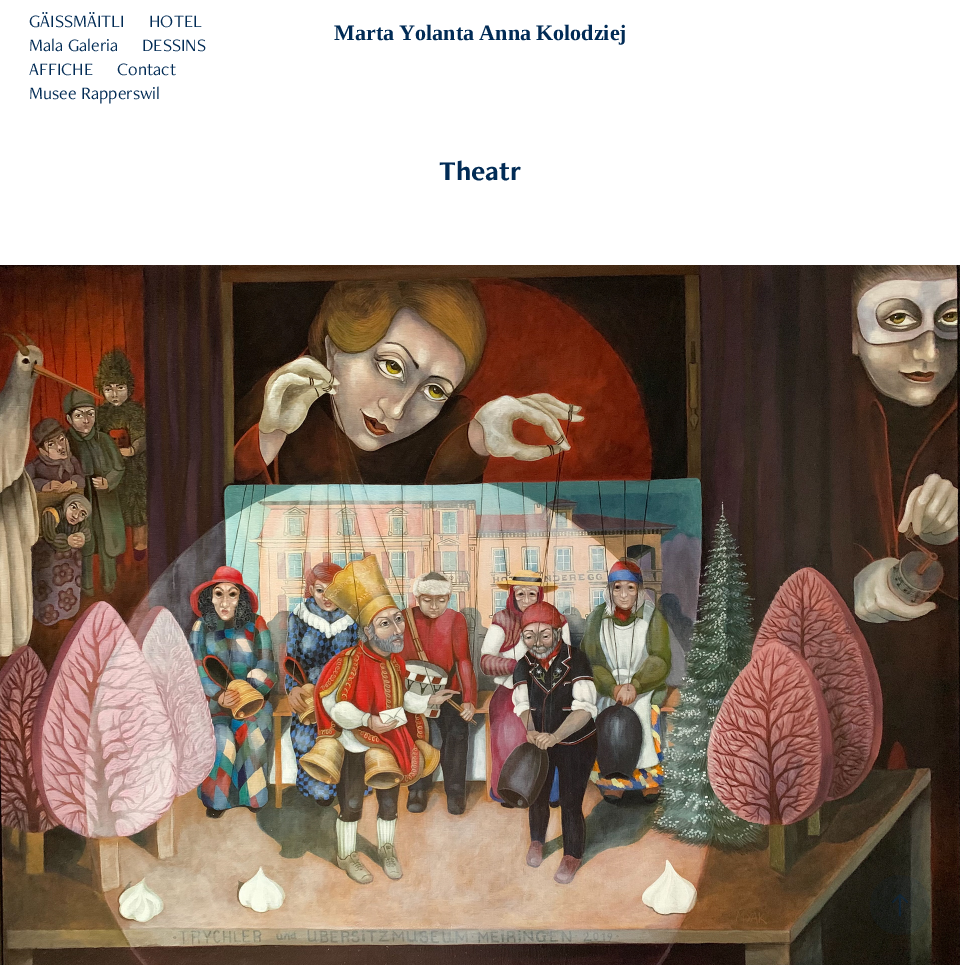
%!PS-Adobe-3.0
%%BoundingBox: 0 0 960 965
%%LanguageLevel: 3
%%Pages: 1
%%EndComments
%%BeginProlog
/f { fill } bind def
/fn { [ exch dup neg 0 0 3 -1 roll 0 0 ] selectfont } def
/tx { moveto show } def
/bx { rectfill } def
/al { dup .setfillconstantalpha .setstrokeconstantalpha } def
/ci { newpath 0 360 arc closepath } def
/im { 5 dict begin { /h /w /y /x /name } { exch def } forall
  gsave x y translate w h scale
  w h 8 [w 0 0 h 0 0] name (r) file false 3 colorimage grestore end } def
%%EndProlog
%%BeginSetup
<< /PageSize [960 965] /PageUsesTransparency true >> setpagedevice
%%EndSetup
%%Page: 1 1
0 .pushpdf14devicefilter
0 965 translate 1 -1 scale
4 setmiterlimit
1 setgray
0 0 960 965 bx
/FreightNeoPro-Regular 18 fn
0.004 0.169 0.333 setrgbcolor
(GÄISSMÄITLI) 29 27 tx
(HOTEL) 149 27 tx
(Mala Galeria) 29 51 tx
(DESSINS) 142 51 tx
(AFFICHE) 29 75 tx
(Contact) 117 75 tx
(Musee Rapperswil) 29 99 tx
/LiberationSerif-Bold 22 fn
(Marta Yolanta Anna Kolodziej) 334 40 tx
/FreightNeoPro-Bold 28 fn
(Theatr) 439 180 tx
(image0.raw) 0 265 960 700 im
0.1 al
900 905 30 ci f
1 al
(image1.raw) 892 894 16 23 im
.poppdf14devicefilter showpage
%%EOF
